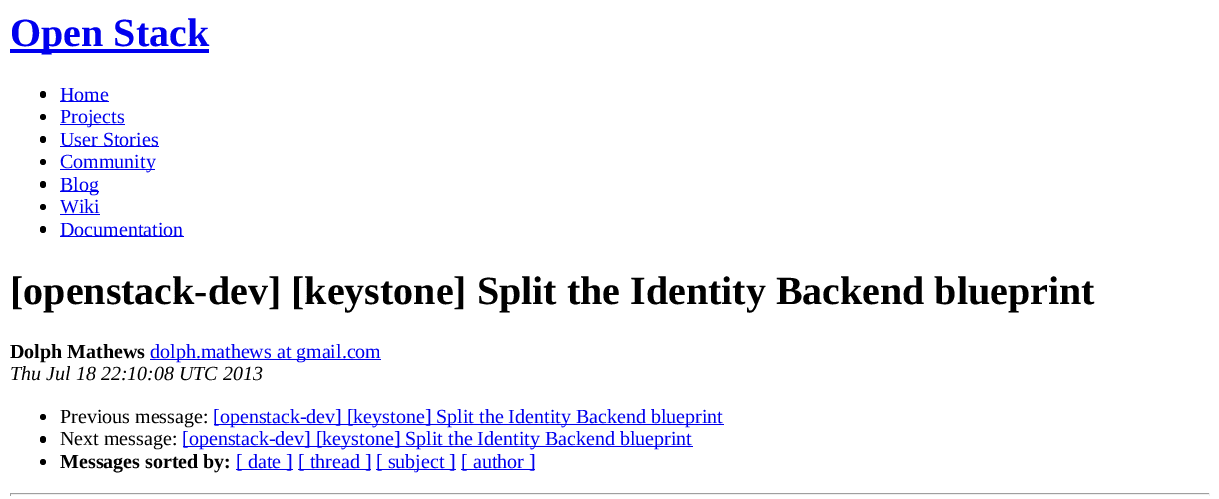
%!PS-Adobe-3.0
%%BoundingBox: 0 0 1219 499
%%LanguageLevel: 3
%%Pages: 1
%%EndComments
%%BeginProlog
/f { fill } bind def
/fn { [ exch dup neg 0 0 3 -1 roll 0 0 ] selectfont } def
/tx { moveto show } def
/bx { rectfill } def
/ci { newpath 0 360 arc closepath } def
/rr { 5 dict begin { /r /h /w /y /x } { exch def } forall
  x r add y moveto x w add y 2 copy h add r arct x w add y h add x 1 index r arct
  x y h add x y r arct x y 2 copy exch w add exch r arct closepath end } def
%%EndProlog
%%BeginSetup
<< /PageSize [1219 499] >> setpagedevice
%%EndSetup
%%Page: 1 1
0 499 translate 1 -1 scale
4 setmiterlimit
1 setgray
0 0 1219 499 bx
0 0 0.933 setrgbcolor
10 49 199 4 bx
/LiberationSerif-Bold 40 fn
(Open Stack) 10 46 tx
0 setgray
40 91 6 7 3 rr f
0 0 0.933 setrgbcolor
60 101 49 1 bx
/LiberationSerif-Regular 20 fn
(Home) 60 101 tx
0 setgray
43 117 3 ci f
0 0 0.933 setrgbcolor
60 124 65 1 bx
(Projects) 60 123 tx
0 setgray
40 136 6 7 3 rr f
0 0 0.933 setrgbcolor
60 146 99 1 bx
(User Stories) 60 146 tx
0 setgray
43 162 3 ci f
0 0 0.933 setrgbcolor
60 169 95 1 bx
(Community) 60 168 tx
0 setgray
40 181 6 7 3 rr f
0 0 0.933 setrgbcolor
60 191 39 1 bx
(Blog) 60 191 tx
0 setgray
43 207 3 ci f
0 0 0.933 setrgbcolor
(Wiki) 60 213 tx
60 214 40 1 bx
0 setgray
40 226 6 7 3 rr f
0 0 0.933 setrgbcolor
60 236 124 1 bx
(Documentation) 60 236 tx
/LiberationSerif-Bold 40 fn
0 setgray
([openstack-dev] [keystone] Split the Identity Backend blueprint) 10 304 tx
/LiberationSerif-Bold 20 fn
(Dolph Mathews) 10 358 tx
0 0 0.933 setrgbcolor
150 359 231 1 bx
/LiberationSerif-Regular 20 fn
(dolph.mathews at gmail.com) 150 358 tx
/LiberationSerif-Italic 20 fn
0 setgray
(Thu Jul 18 22:10:08 UTC 2013) 10 380 tx
43 417 3 ci f
/LiberationSerif-Regular 20 fn
(Previous message:) 60 423 tx
0 0 0.933 setrgbcolor
214 424 510 1 bx
([openstack-dev] [keystone] Split the Identity Backend blueprint) 213 423 tx
0 setgray
40 436 6 7 3 rr f
(Next message:) 60 445 tx
0 0 0.933 setrgbcolor
183 446 510 1 bx
([openstack-dev] [keystone] Split the Identity Backend blueprint) 182 445 tx
0 setgray
43 462 3 ci f
/LiberationSerif-Bold 20 fn
(Messages sorted by:) 60 468 tx
0 0 0.933 setrgbcolor
236 469 57 1 bx
/LiberationSerif-Regular 20 fn
([ date ]) 236 468 tx
298 469 73 1 bx
([ thread ]) 298 468 tx
376 469 80 1 bx
([ subject ]) 376 468 tx
461 469 74 1 bx
([ author ]) 461 468 tx
0.624 setgray
10 493 1200 1 bx
0.933 setgray
1209 493 1 3 bx
10 494 1200 1 bx
0.624 setgray
10 493 1 3 bx
showpage
%%EOF
